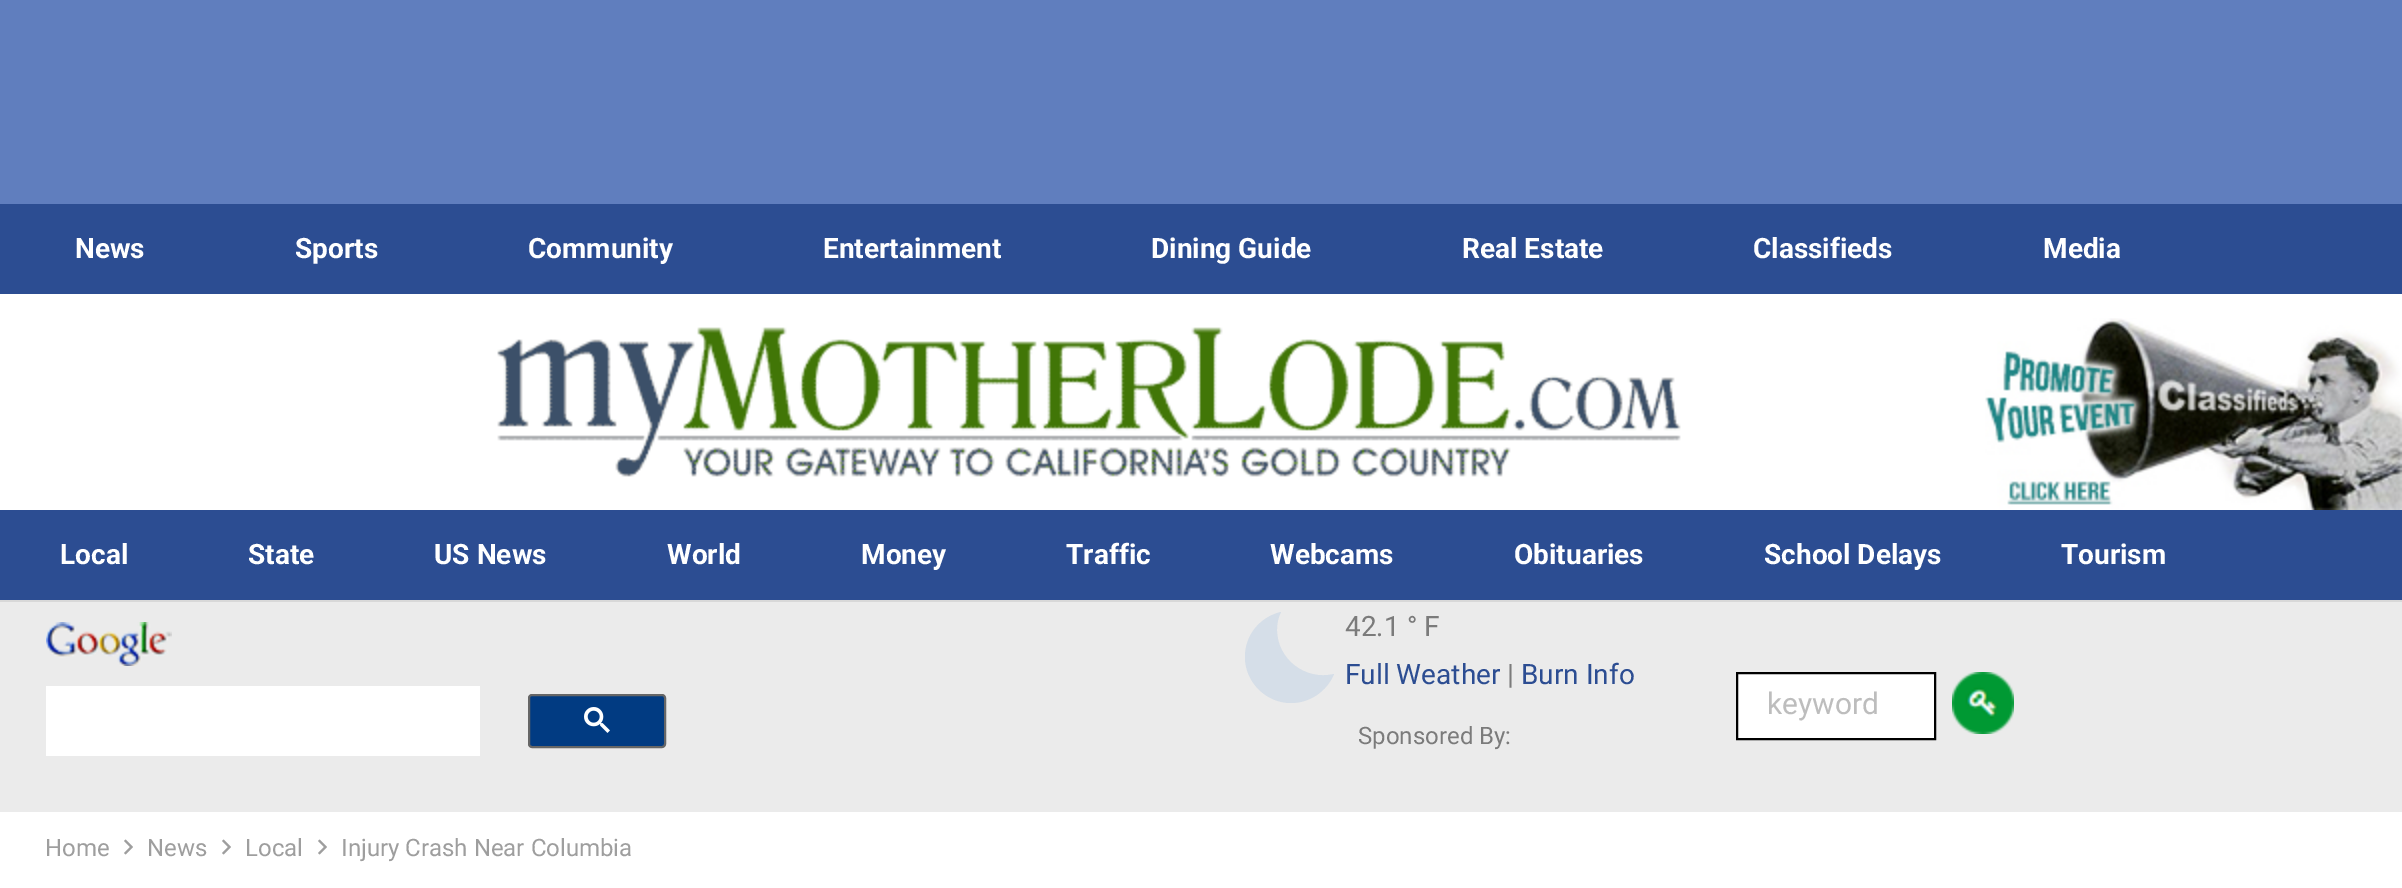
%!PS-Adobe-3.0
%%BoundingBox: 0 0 2402 888
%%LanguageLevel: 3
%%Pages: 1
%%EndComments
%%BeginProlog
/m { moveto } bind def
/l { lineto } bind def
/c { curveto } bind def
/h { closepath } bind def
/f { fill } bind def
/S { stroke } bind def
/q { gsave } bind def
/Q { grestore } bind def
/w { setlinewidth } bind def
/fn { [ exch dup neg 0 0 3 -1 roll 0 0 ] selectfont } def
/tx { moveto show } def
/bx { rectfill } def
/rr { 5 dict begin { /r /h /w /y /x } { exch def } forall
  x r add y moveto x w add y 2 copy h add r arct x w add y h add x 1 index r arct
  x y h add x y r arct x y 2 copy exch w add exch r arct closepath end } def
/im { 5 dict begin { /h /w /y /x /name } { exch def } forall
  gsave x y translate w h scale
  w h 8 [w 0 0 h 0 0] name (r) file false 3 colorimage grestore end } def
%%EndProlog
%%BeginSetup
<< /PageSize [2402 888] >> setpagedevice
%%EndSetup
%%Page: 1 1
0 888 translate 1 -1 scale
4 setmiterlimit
0.376 0.494 0.745 setrgbcolor
0 0 2402 888 bx
1 setgray
0 294 2402 594 bx
0.173 0.302 0.573 setrgbcolor
0 204 2402 90 bx
/Roboto-Bold 28 fn
1 setgray
(News) 75 258 tx
(Sports) 295 258 tx
(Community) 528 258 tx
(Entertainment) 823 258 tx
(Dining Guide) 1151 258 tx
(Real Estate) 1462 258 tx
(Classifieds) 1753 258 tx
(Media) 2043 258 tx
(image0.raw) 497 327 1184 150 im
(image1.raw) 1985 318 417 192 im
0.847 setgray
0 600 2402 2 bx
0.173 0.302 0.573 setrgbcolor
0 510 2402 90 bx
1 setgray
(Local) 60 564 tx
(State) 248 564 tx
(US News) 434 564 tx
(World) 667 564 tx
(Money) 861 564 tx
(Traffic) 1066 564 tx
(Webcams) 1270 564 tx
(Obituaries) 1514 564 tx
(School Delays) 1764 564 tx
(Tourism) 2061 564 tx
0.922 setgray
0 602 2402 210 bx
(image2.raw) 46 622 126 44 im
1 setgray
46 686 434 70 bx
0.004 0.231 0.51 setrgbcolor
529 695 136 52 3 rr q f Q
0.4 setgray
2 w
S
(image3.raw) 584 707 26 26 im
0.835 0.871 0.91 setrgbcolor
1277 630 m 1277 659 1305 681 1334 674 c 1327 691 1310 703 1291 703 c 1266 703 1245 682 1245 657 c 1245 635 1260 617 1281 612 c 1278 618 1277 623 1277 630 c h eofill
/Roboto-Regular 28 fn
0.482 setgray
(42.1 ° F) 1345 636 tx
0.173 0.302 0.573 setrgbcolor
(Full Weather) 1345 684 tx
0.482 setgray
(|) 1507 684 tx
0.173 0.302 0.573 setrgbcolor
(Burn Info) 1521 684 tx
/Roboto-Regular 24 fn
0.482 setgray
(Sponsored By:) 1358 744 tx
1 setgray
1737 673 m 1935 673 l 1935 739 l 1737 739 l h q f Q
0 setgray
S
/Roboto-Regular 30 fn
0.741 setgray
(keyword) 1767 714 tx
(image4.raw) 1952 672 62 62 im
/Roboto-Regular 24 fn
0.62 setgray
(Home) 45 856 tx
(image5.raw) 124 839 9 16 im
(News) 147 856 tx
(image5.raw) 222 839 9 16 im
(Local) 245 856 tx
(image5.raw) 318 839 9 16 im
(Injury Crash Near Columbia) 341 856 tx
showpage
%%EOF
